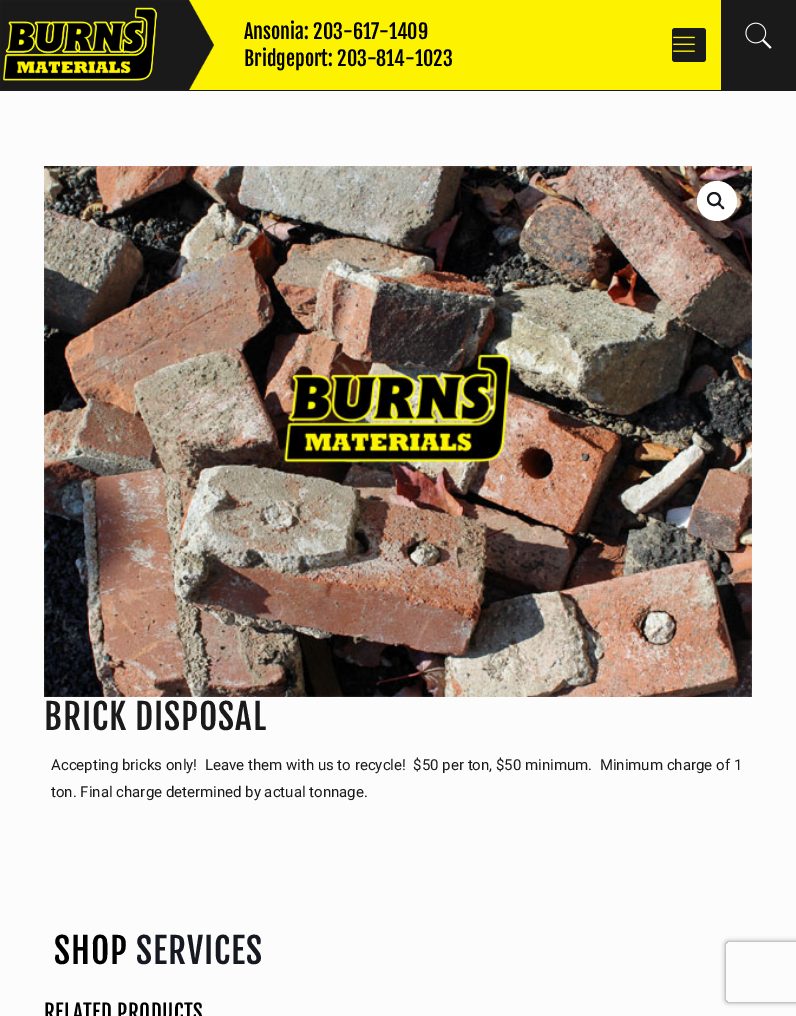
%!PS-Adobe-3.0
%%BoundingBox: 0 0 796 1016
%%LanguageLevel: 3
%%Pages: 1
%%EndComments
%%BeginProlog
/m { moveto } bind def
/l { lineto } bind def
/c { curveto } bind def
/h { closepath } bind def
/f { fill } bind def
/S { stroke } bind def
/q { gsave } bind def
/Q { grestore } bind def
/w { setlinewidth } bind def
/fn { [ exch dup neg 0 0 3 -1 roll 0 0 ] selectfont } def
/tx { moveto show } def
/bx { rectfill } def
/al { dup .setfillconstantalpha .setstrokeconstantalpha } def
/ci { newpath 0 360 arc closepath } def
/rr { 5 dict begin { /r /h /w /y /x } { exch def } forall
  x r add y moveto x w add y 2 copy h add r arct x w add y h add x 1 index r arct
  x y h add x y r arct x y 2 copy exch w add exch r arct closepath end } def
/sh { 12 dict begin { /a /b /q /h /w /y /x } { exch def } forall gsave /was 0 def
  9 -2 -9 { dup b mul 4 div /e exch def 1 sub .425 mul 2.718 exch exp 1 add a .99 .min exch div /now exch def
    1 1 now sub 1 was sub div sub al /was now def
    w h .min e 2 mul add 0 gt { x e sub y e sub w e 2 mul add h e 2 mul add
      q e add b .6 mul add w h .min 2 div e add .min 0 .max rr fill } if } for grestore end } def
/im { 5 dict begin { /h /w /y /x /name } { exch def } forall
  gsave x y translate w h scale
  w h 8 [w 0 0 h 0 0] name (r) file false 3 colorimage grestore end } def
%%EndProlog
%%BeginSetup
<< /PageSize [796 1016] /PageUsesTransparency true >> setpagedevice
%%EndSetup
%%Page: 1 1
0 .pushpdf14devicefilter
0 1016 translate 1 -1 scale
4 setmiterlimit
0.988 setgray
0 0 796 1016 bx
0.102 setgray
0 0 796 91 bx
0.992 0.949 0 setrgbcolor
0 0 721 90 bx
(image0.raw) 0 0 214 90 im
/FjallaOne-Regular 20 fn
0 setgray
(Ansonia: 203-617-1409) 244 39 tx
(Bridgeport: 203-814-1023) 244 66 tx
0.102 setgray
672 28 34 34 3 rr f
(image1.raw) 673 36 22 16 im
(image2.raw) 745 22 27 27 im
(image3.raw) 44 166 708 531 im
1 setgray
717 201 20 ci f
0.086 0.098 0.133 setrgbcolor
2 w
714 199 6 ci S
718 203 m 719.5 202 721 204.5 721.5 205.5 c 722.5 206 725 207.5 724 209 c 722.5 210 721 207.5 720.5 206.5 c 719.5 206 717 204.5 718 203 c h f
/FjallaOne-Regular 35 fn
0.102 setgray
44 730 m 0.9 0 (BRICK DISPOSAL) ashow
/Roboto-Regular 15 fn
(Accepting bricks only!  Leave them with us to recycle!  $50 per ton, $50 minimum.  Minimum charge of 1) 51 770 tx
(ton. Final charge determined by actual tonnage.) 51 797 tx
/FjallaOne-Regular 35 fn
0 setgray
54 964 m 0.9 0 (SHOP) ashow
0.086 0.098 0.133 setrgbcolor
136 964 m 0.9 0 (SERVICES) ashow
/FjallaOne-Regular 21 fn
0 setgray
44 1020 m 0.5 0 (RELATED PRODUCTS) ashow
q
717 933 m 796 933 l 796 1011 l 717 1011 l h 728 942 m 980 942 l 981 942 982 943 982 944 c 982 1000 l 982 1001 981 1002 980 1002 c 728 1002 l 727 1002 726 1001 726 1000 c 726 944 l 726 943 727 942 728 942 c h eoclip newpath
0.502 setgray
726 942 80 60 2 2.5 1 sh
Q
.poppdf14devicefilter showpage
%%EOF
